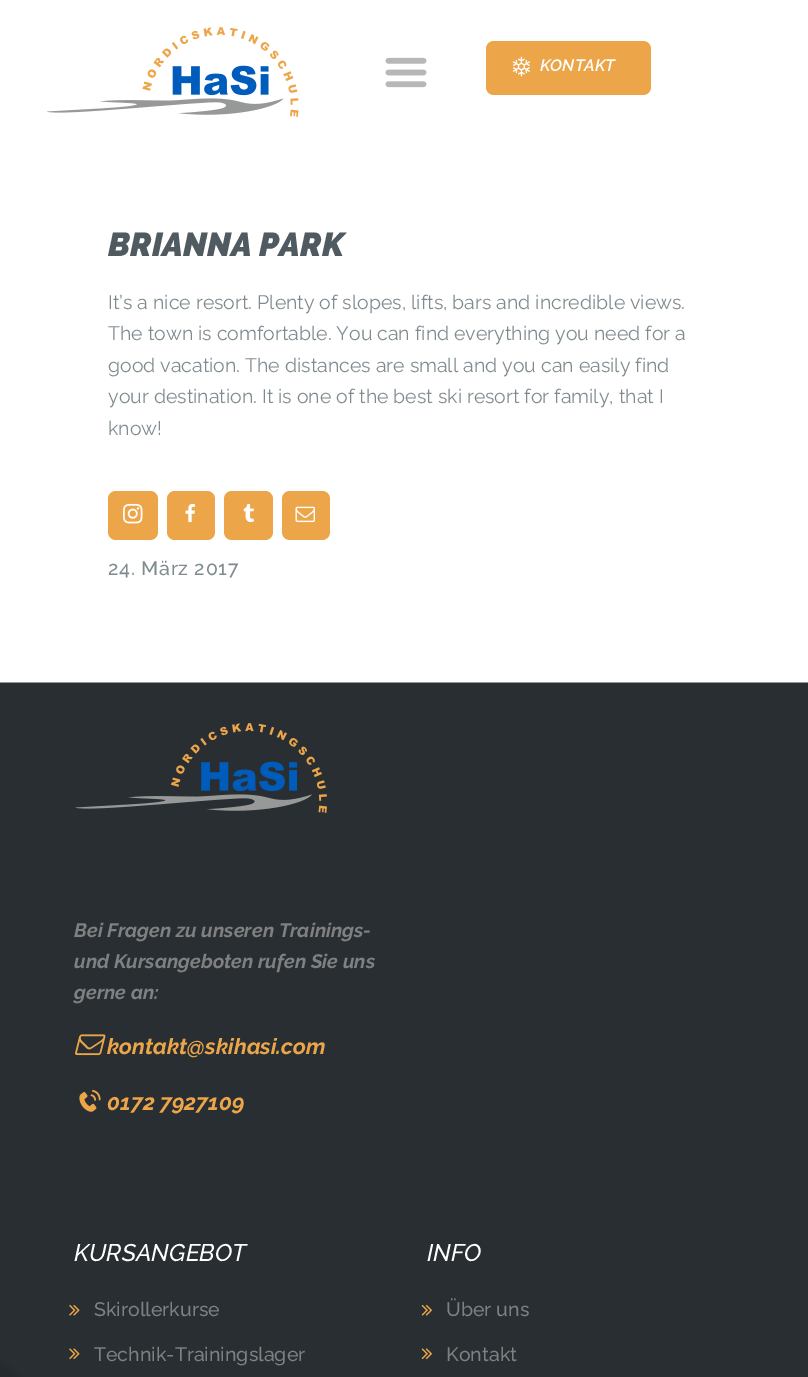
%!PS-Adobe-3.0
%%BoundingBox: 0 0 808 1377
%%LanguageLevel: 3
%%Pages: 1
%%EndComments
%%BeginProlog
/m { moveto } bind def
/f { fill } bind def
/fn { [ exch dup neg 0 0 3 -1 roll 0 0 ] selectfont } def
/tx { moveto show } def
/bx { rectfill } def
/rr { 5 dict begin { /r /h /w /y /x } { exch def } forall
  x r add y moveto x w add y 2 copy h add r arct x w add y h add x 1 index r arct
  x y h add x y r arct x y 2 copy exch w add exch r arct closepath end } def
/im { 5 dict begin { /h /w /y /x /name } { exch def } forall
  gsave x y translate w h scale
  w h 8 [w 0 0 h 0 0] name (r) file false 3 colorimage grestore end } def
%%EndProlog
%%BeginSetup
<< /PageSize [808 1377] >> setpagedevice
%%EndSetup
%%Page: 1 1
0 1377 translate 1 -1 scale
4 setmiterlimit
1 setgray
0 0 808 1377 bx
(image0.raw) 47 27 252 90 im
(image1.raw) 385 57 42 31 im
0.925 0.647 0.286 setrgbcolor
486 41 165 54 8 rr f
(image2.raw) 512 56 18 21 im
/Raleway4-ThinItalic 16.5 fn
1 setgray
(KONTAKT) 540 71 tx
/Raleway-ThinItalic 33 fn
0.314 0.353 0.38 setrgbcolor
(BRIANNA PARK) 108 256 tx
/Raleway-Thin 19.5 fn
0.502 0.545 0.565 setrgbcolor
(It’s a nice resort. Plenty of slopes, lifts, bars and incredible views.) 108 309 tx
(The town is comfortable. You can find everything you need for a) 108 340 tx
(good vacation. The distances are small and you can easily find) 108 372 tx
(your destination. It is one of the best ski resort for family, that I) 108 403 tx
(know!) 108 435 tx
0.925 0.647 0.286 setrgbcolor
108 491 50 49 8 rr f
(image3.raw) 123 503 20 21 im
167 491 48 49 8 rr f
(image4.raw) 185 503 10 20 im
224 491 49 49 8 rr f
(image5.raw) 243 503 12 19 im
282 491 48 49 8 rr f
(image6.raw) 295 506 20 17 im
/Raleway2-Thin 19.5 fn
0.502 0.545 0.565 setrgbcolor
108 575 m 0.75 0 (24. März 2017) ashow
(image7.raw) 0 682 808 695 im
(image8.raw) 75 723 252 90 im
/Raleway2-ThinItalic 19.5 fn
0.494 0.502 0.506 setrgbcolor
(Bei Fragen zu unseren Trainings-) 74 937 tx
(und Kursangeboten rufen Sie uns) 74 968 tx
(gerne an:) 74 999 tx
(image9.raw) 75 1034 31 22 im
/Raleway2-ThinItalic 22 fn
0.925 0.647 0.286 setrgbcolor
(kontakt@skihasi.com) 107 1054 tx
(image10.raw) 79 1089 22 23 im
(0172 7927109) 107 1110 tx
/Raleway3-ThinItalic 24 fn
1 setgray
(KURSANGEBOT) 74 1261 tx
(image11.raw) 69 1304 11 12 im
/Raleway2-Thin 19.5 fn
0.494 0.502 0.506 setrgbcolor
(Skirollerkurse) 94 1316 tx
(image12.raw) 69 1348 11 12 im
(Technik-Trainingslager) 94 1361 tx
/Raleway3-ThinItalic 24 fn
1 setgray
(INFO) 427 1261 tx
(image13.raw) 421 1304 11 12 im
/Raleway2-Thin 19.5 fn
0.494 0.502 0.506 setrgbcolor
(Über uns) 446 1316 tx
(image14.raw) 421 1348 11 12 im
(Kontakt) 446 1361 tx
showpage
%%EOF
